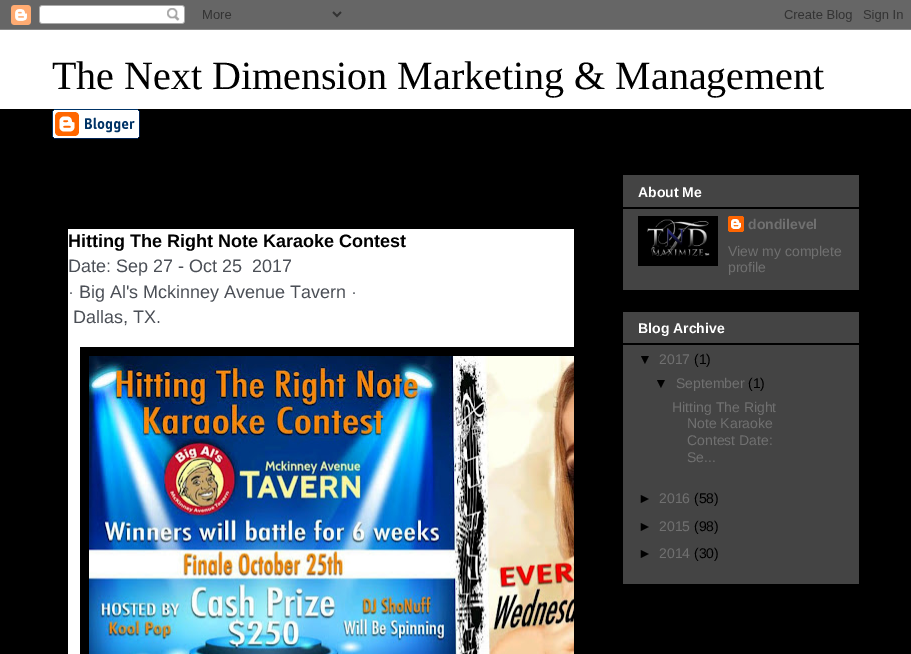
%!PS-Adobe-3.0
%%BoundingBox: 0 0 911 654
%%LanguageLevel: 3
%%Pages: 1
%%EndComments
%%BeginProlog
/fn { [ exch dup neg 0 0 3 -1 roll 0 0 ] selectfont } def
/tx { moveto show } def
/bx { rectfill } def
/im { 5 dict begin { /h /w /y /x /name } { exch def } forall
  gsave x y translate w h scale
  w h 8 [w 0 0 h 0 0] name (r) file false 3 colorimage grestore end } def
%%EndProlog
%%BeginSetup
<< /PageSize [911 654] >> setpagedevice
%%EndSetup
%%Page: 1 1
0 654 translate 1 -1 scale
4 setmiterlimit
0 setgray
0 0 911 654 bx
(image0.raw) 0 0 911 30 im
1 setgray
0 30 911 79 bx
/LiberationSerif-Regular 40 fn
0 setgray
(The Next Dimension Marketing & Management) 52 89 tx
(image1.raw) 52 109 88 30 im
1 setgray
68 229 506 425 bx
/LiberationSans-Bold 18 fn
0 setgray
(Hitting The Right Note Karaoke Contest) 68 247 tx
/LiberationSans-Regular 18 fn
0.294 0.31 0.337 setrgbcolor
(Date: Sep 27 - Oct 25) 68 272 tx
(2017) 252 272 tx
(· Big Al's Mckinney Avenue Tavern ·) 68 298 tx
(Dallas, TX.) 73 323 tx
0 setgray
80 347 494 307 bx
(image2.raw) 89 356 485 298 im
0.267 setgray
623 175 236 115 bx
/LiberationSans-Bold 14 fn
1 setgray
(About Me) 638 197 tx
0 setgray
623 207 236 2 bx
(image3.raw) 638 216 80 50 im
(image4.raw) 728 216 16 16 im
0.439 setgray
(dondilevel) 748 229 tx
/LiberationSans-Regular 14 fn
(View my complete) 728 256 tx
(profile) 728 272 tx
0.267 setgray
623 312 236 272 bx
/LiberationSans-Bold 14 fn
1 setgray
(Blog Archive) 638 333 tx
0 setgray
623 343 236 2 bx
/LiberationSans-Regular 14 fn
(▼) 638 364 tx
0.439 setgray
(2017) 659 364 tx
0 setgray
(\(1\)) 694 364 tx
(▼) 654 388 tx
0.439 setgray
(September) 676 388 tx
0 setgray
(\(1\)) 748 388 tx
0.439 setgray
(Hitting The Right) 672 412 tx
(Note Karaoke) 687 428 tx
(Contest Date:) 687 445 tx
(Se...) 687 462 tx
0 setgray
(►) 638 503 tx
0.439 setgray
(2016) 659 503 tx
0 setgray
(\(58\)) 694 503 tx
(►) 638 531 tx
0.439 setgray
(2015) 659 531 tx
0 setgray
(\(98\)) 694 531 tx
(►) 638 558 tx
0.439 setgray
(2014) 659 558 tx
0 setgray
(\(30\)) 694 558 tx
showpage
%%EOF
